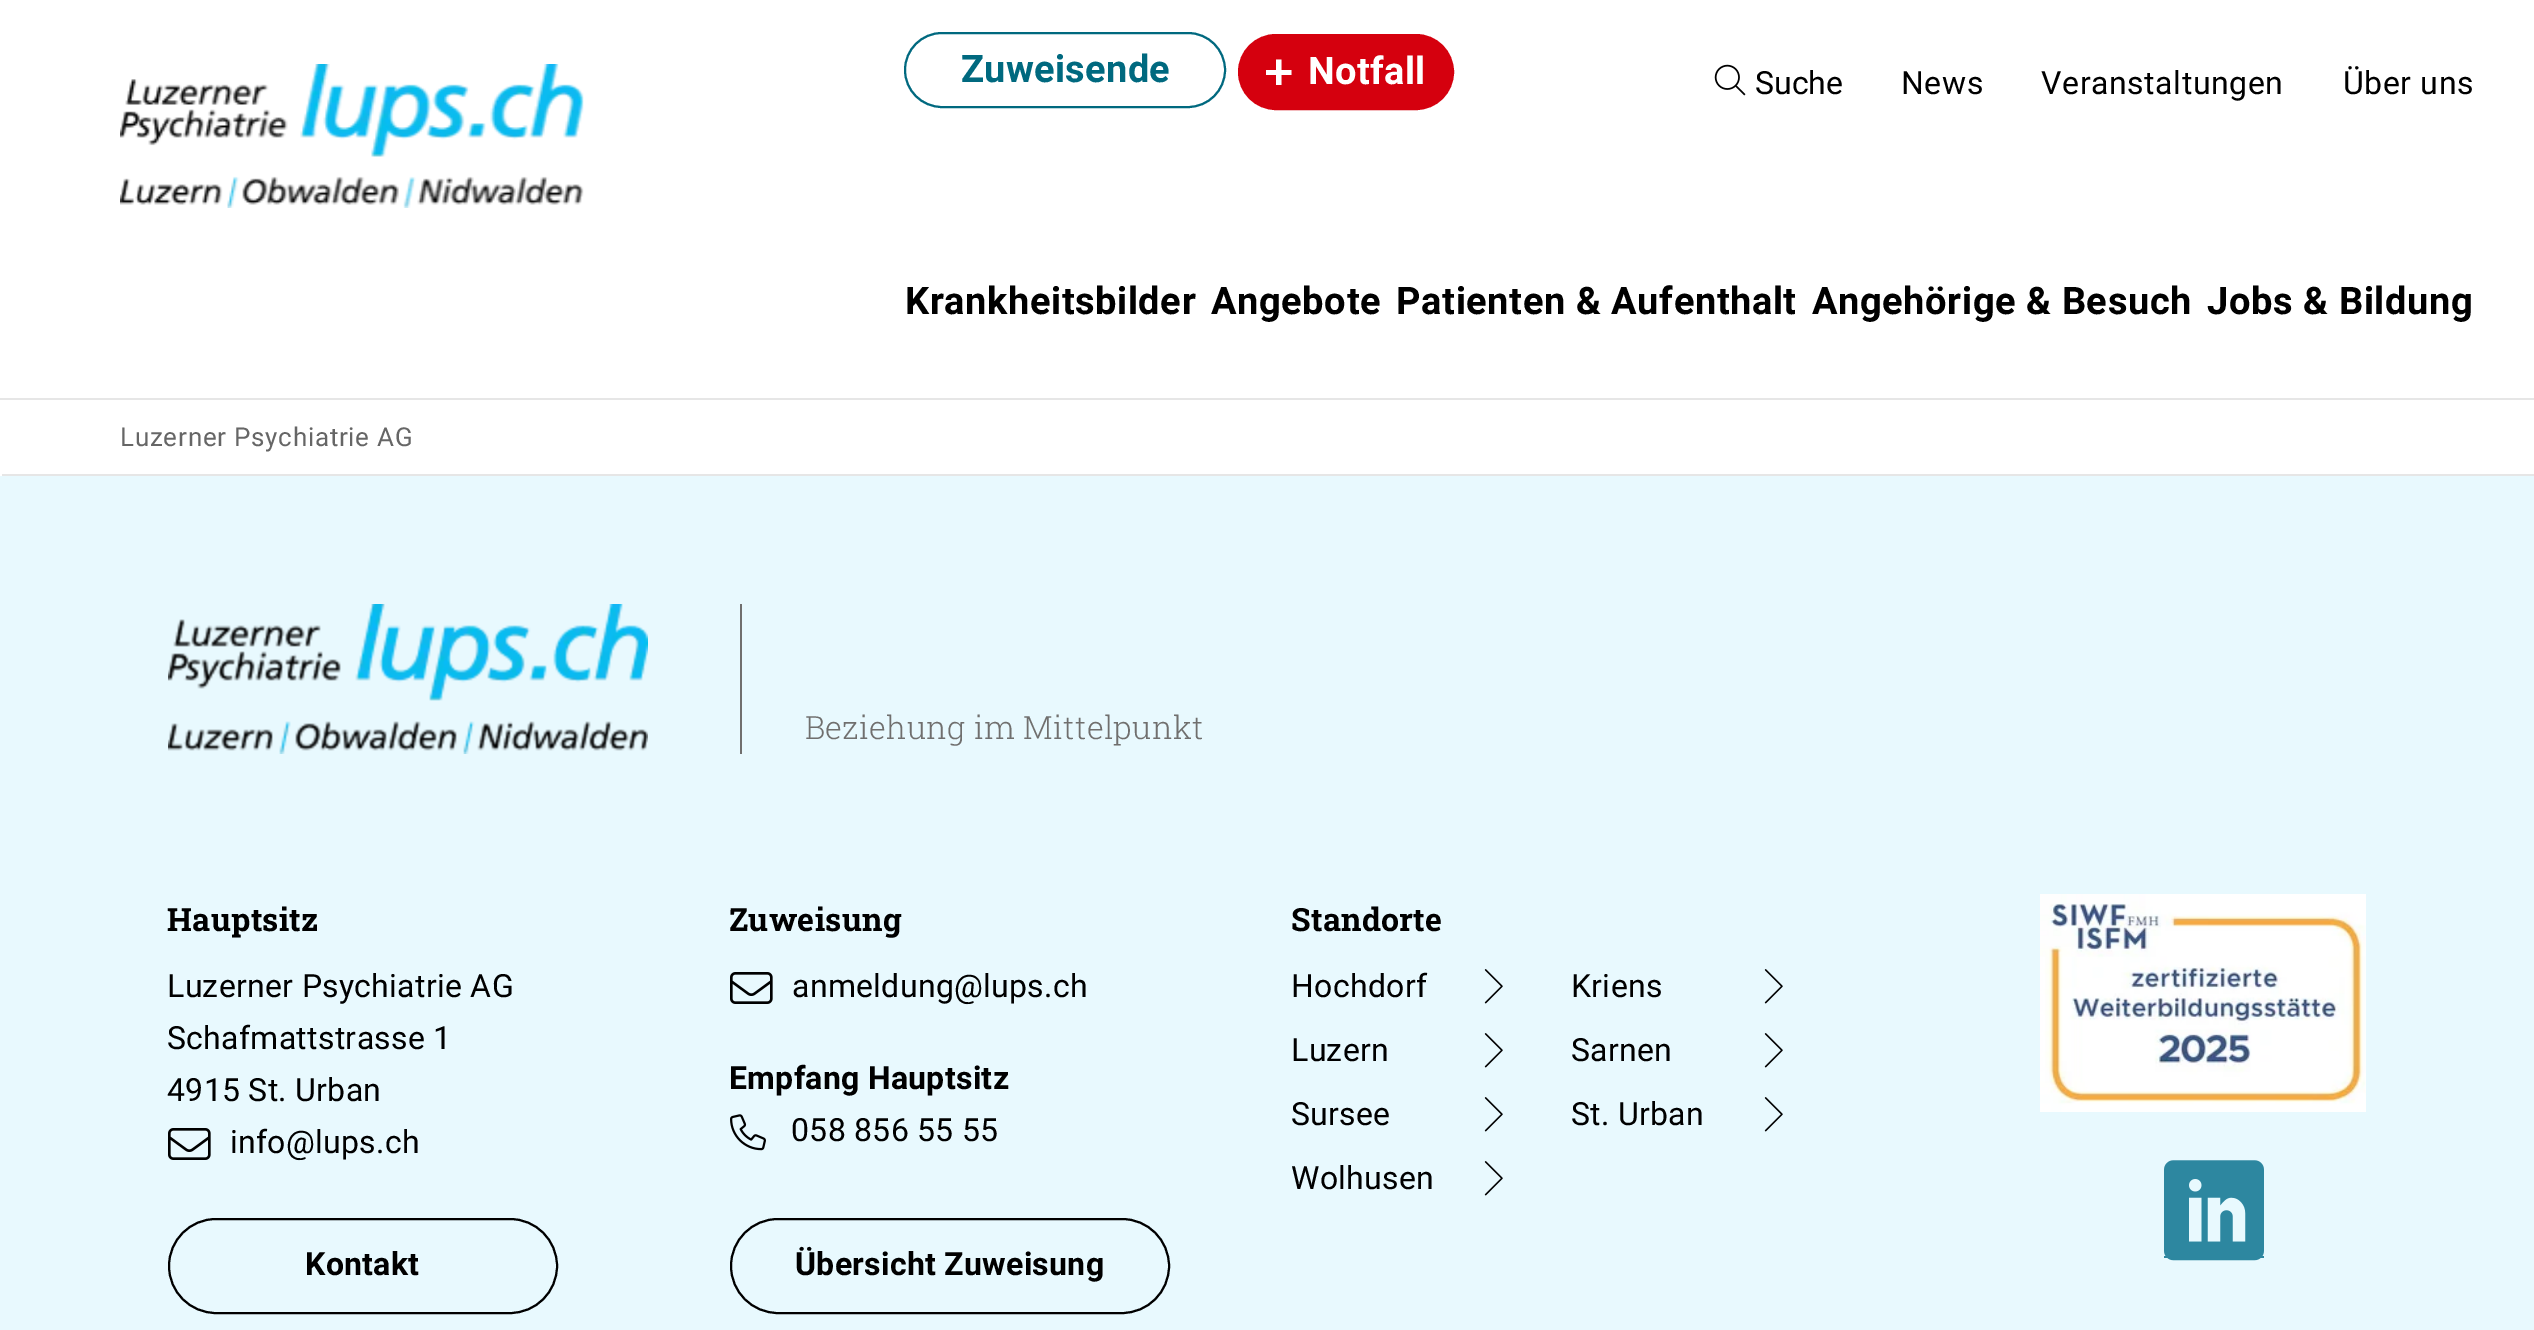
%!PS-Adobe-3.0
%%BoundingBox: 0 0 2534 1330
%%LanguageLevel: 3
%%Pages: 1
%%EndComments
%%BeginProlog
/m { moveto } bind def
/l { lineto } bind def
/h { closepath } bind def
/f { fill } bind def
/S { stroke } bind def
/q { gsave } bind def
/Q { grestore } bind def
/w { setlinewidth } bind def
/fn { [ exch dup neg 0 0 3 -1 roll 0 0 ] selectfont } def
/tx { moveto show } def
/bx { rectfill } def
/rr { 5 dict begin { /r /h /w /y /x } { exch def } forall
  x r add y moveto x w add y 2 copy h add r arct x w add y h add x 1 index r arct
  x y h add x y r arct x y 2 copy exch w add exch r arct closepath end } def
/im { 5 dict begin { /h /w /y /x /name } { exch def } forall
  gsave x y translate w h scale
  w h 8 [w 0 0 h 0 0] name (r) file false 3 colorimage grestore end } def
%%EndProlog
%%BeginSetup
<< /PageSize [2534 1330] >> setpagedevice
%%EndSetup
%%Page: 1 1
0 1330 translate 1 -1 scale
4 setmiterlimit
1 setgray
0 0 2534 1330 bx
0.902 setgray
0 398 2534 2 bx
(image0.raw) 120 64 464 144 im
0 0.412 0.498 setrgbcolor
2 w
905 33 320 74 37 rr S
/Roboto-Bold 38 fn
961 82 m 0.3 0 (Zuweisende) ashow
0.835 0 0.055 setrgbcolor
1239 35 214 74 37 rr q f Q
S
1 setgray
1276 59.5 m 1281.5 59.5 l 1281.5 85 l 1276 85 l h 1291.5 70 m 1291.5 75 l 1266 75 l 1266 70 l h f
1308 84 m 0.3 0 (Notfall) ashow
(image1.raw) 1714 64 32 32 im
/Roboto-Regular 32 fn
0 setgray
(Suche) 1755 94 tx
1901 94 m 0.6 0 (News) ashow
2041 94 m 0.6 0 (Veranstaltungen) ashow
2343 94 m 0.6 0 (Über uns) ashow
/Roboto-Bold 38 fn
905 314 m 0.6 0 (Krankheitsbilder) ashow
1211 314 m 0.6 0 (Angebote) ashow
1396 314 m 0.6 0 (Patienten & Aufenthalt) ashow
1812 314 m 0.6 0 (Angehörige & Besuch) ashow
2207 314 m 0.6 0 (Jobs & Bildung) ashow
/Roboto-Regular 26 fn
0.4 setgray
120 446 m 0.75 0 (Luzerner Psychiatrie AG) ashow
0.902 setgray
2 474 2532 2 bx
0.91 0.976 0.996 setrgbcolor
0 476 2534 854 bx
(image2.raw) 168 604 480 150 im
0.439 0.435 0.431 setrgbcolor
740 604 2 150 bx
/RobotoSlab-Light 32 fn
805 739 m 0.3 0 (Beziehung im Mittelpunkt) ashow
/RobotoSlab-Bold 32 fn
0 setgray
167 931 m 0.3 0 (Hauptsitz) ashow
/Roboto-Regular 32 fn
167 997 m 0.3 0 (Luzerner Psychiatrie AG) ashow
167 1049 m 0.3 0 (Schafmattstrasse 1) ashow
167 1101 m 0.3 0 (4915 St. Urban) ashow
(image3.raw) 168 1128 43 32 im
230 1153 m 0.3 0 (info@lups.ch) ashow
169 1219 388 94 47 rr S
/Roboto-Bold 32 fn
305 1275 m 0.3 0 (Kontakt) ashow
/RobotoSlab-Bold 32 fn
729 931 m 0.3 0 (Zuweisung) ashow
(image3.raw) 730 972 43 32 im
/Roboto-Regular 32 fn
792 997 m 0.3 0 (anmeldung@lups.ch) ashow
/Roboto-Bold 32 fn
729 1089 m 0.3 0 (Empfang Hauptsitz) ashow
(image4.raw) 730 1114 36 37 im
/Roboto-Regular 32 fn
791 1141 m 0.3 0 (058 856 55 55) ashow
731 1219 438 94 47 rr S
/Roboto-Bold 32 fn
795 1275 m 0.3 0 (Übersicht Zuweisung) ashow
/RobotoSlab-Bold 32 fn
1291 931 m 0.3 0 (Standorte) ashow
/Roboto-Regular 32 fn
1291 997 m 0.3 0 (Hochdorf) ashow
(image5.raw) 1484 969 19 35 im
1571 997 m 0.3 0 (Kriens) ashow
(image5.raw) 1764 969 19 35 im
1291 1061 m 0.3 0 (Luzern) ashow
(image5.raw) 1484 1033 19 35 im
1571 1061 m 0.3 0 (Sarnen) ashow
(image5.raw) 1764 1033 19 35 im
1291 1125 m 0.3 0 (Sursee) ashow
(image5.raw) 1484 1097 19 35 im
1571 1125 m 0.3 0 (St. Urban) ashow
(image5.raw) 1764 1097 19 35 im
1291 1189 m 0.3 0 (Wolhusen) ashow
(image5.raw) 1484 1161 19 35 im
(image6.raw) 2040 894 326 218 im
0.176 0.529 0.627 setrgbcolor
2164 1256 100 2 bx
(image7.raw) 2164 1160 100 101 im
showpage
%%EOF
